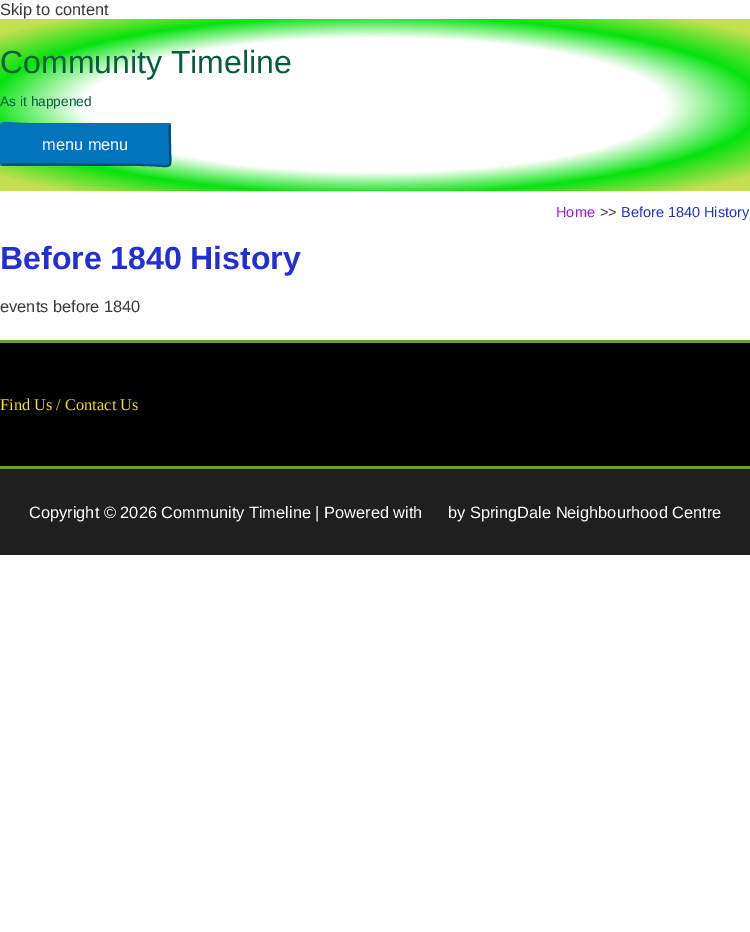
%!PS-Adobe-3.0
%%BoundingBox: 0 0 750 932
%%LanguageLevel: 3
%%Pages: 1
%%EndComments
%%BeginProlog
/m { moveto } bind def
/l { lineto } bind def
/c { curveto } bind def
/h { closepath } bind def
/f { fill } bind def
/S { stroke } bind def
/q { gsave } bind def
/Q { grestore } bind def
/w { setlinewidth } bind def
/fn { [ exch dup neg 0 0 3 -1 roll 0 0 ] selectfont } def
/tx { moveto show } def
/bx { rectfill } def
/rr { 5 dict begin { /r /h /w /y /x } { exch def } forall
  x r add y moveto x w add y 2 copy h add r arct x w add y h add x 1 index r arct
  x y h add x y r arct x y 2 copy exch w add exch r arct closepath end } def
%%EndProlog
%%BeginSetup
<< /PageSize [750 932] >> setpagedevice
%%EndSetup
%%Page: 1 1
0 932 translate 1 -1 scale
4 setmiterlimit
1 setgray
0 0 750 932 bx
/LiberationSans-Regular 16.4 fn
0.227 setgray
(Skip to content) 0 15 tx
q 0 19 m 750 19 l 750 191 l 0 191 l h clip newpath 375 105 translate 530 122 scale
<< /ShadingType 3 /ColorSpace /DeviceRGB /Coords [0 0 0 0 0 1] /Extend [true true] /Function << /FunctionType 3 /Domain [0 1] /Functions [<< /FunctionType 2 /Domain [0 1] /C0 [1 1 1] /C1 [1 1 1] /N 1 >> << /FunctionType 2 /Domain [0 1] /C0 [1 1 1] /C1 [0.027 0.89 0.055] /N 1 >> << /FunctionType 2 /Domain [0 1] /C0 [0.027 0.89 0.055] /C1 [0.769 0.878 0.318] /N 1 >> << /FunctionType 2 /Domain [0 1] /C0 [0.769 0.878 0.318] /C1 [0.769 0.878 0.318] /N 1 >>] /Bounds [0.55 0.73 0.92] /Encode [0 1 0 1 0 1 0 1] >> >> shfill Q
/LiberationSans-Regular 32 fn
0.024 0.365 0.239 setrgbcolor
(Community Timeline) 0 73 tx
/LiberationSans-Regular 13.75 fn
(As it happened) 0 106 tx
0.008 0.455 0.745 setrgbcolor
0 123 171 43 2 rr f
0.004 0.302 0.498 setrgbcolor
2 w
169.5 124.5 m 170 144.5 l 170 173.5 176 165 141 165 c 1.5 164.5 l S
0.008 0.455 0.745 setrgbcolor
1.5 164.5 m 1 144.5 l 1 115.5 -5 124 30 124 c 169.5 124.5 l S
/LiberationSans-Regular 16.4 fn
1 setgray
(menu menu) 42 150 tx
/LiberationSans-Regular 14.5 fn
0.608 0.122 0.757 setrgbcolor
(Home) 556 217 tx
0.227 setgray
(>>) 600 217 tx
0.114 0.204 0.776 setrgbcolor
(Before 1840 History) 621 217 tx
/LiberationSans-Bold 32 fn
0.133 0.18 0.839 setrgbcolor
(Before 1840 History) 0 269 tx
/LiberationSans-Regular 16.4 fn
0.227 setgray
(events before 1840) 0 312 tx
0 setgray
0 343 750 123 bx
0.431 0.616 0.192 setrgbcolor
0 340 750 3 bx
/LiberationSerif-Regular 16.4 fn
0.957 0.89 0.043 setrgbcolor
(Find Us / Contact Us) 0 410 tx
0.431 0.616 0.192 setrgbcolor
0 466 750 3 bx
0.122 setgray
0 469 750 86 bx
/LiberationSans-Regular 16.4 fn
1 setgray
(Copyright © 2026 Community Timeline | Powered with) 29 518 tx
(by SpringDale Neighbourhood Centre) 448 518 tx
showpage
%%EOF
